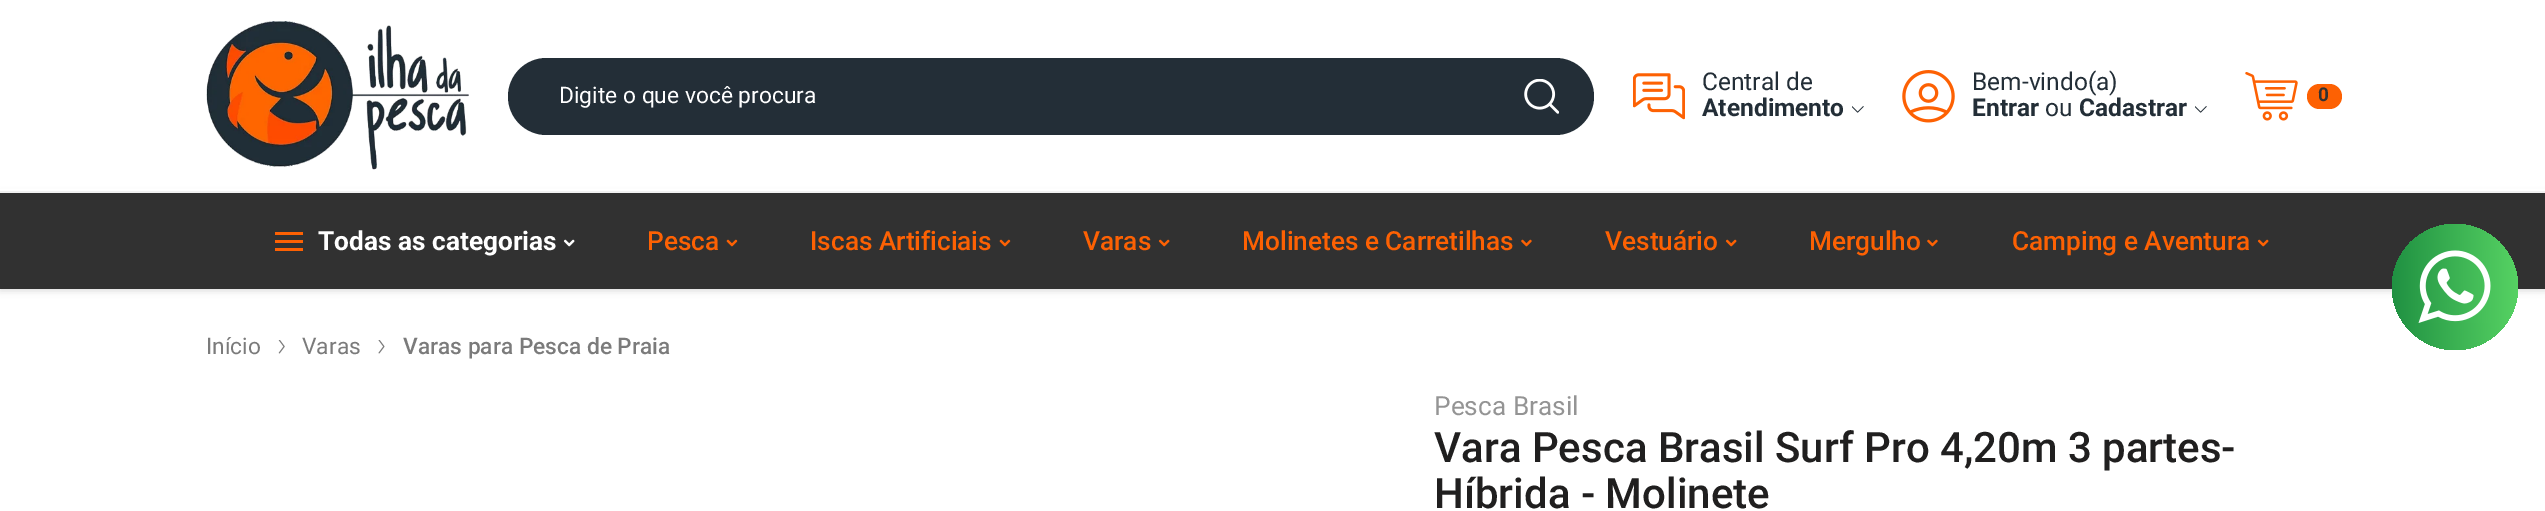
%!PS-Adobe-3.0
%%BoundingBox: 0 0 2545 511
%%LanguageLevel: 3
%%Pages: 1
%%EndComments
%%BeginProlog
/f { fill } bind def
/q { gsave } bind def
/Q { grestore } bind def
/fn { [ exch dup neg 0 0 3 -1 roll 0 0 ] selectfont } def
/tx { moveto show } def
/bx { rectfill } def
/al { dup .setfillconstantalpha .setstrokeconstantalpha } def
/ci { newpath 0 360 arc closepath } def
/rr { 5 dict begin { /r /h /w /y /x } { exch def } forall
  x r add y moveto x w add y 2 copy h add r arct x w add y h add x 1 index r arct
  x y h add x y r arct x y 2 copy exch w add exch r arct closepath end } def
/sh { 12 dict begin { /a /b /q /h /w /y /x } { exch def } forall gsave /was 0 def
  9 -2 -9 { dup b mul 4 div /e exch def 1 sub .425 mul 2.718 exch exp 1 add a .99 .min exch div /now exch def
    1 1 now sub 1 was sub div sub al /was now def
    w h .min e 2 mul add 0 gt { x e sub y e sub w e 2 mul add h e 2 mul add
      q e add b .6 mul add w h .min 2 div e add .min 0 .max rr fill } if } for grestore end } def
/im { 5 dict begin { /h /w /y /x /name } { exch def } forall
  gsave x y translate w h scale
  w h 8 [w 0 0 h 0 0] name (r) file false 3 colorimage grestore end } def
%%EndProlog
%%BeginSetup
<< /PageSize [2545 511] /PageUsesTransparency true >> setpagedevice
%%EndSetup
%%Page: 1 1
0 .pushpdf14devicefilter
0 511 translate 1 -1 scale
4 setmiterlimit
1 setgray
0 0 2545 511 bx
0.322 setgray
0 194 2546 97 0 3.5 0.2 sh
1 setgray
0 189 2545 2 bx
0.945 setgray
0 191 2545 2 bx
(image0.raw) 206 21 263 149 im
0.137 0.18 0.216 setrgbcolor
508 58 1086 77 38.5 rr f
/Roboto-Regular 22.75 fn
1 setgray
(Digite o que você procura) 559 103 tx
(image1.raw) 1524 79 35 35 im
(image2.raw) 1633 73 52 47 im
/Roboto-Regular 24.5 fn
0.137 0.18 0.216 setrgbcolor
(Central de) 1702 90 tx
/Roboto-Bold 24.5 fn
(Atendimento) 1702 116 tx
(image3.raw) 1852 106 12 7 im
(image4.raw) 1902 70 53 53 im
/Roboto-Regular 24.5 fn
(Bem-vindo\(a\)) 1972 90 tx
/Roboto-Bold 24.5 fn
(Entrar) 1972 116 tx
/Roboto-Regular 24.5 fn
(ou) 2045 116 tx
/Roboto-Bold 24.5 fn
(Cadastrar) 2079 116 tx
(image3.raw) 2195 106 12 7 im
(image5.raw) 2245 72 53 49 im
0.992 0.38 0.012 setrgbcolor
2307 84 35 25 12.5 rr f
/Roboto-Bold 19 fn
0.192 setgray
(0) 2318 101 tx
0 193 2545 96 bx
0.992 0.38 0.012 setrgbcolor
275 248 28 3 bx
275 240 28 3 bx
275 232 28 3 bx
/Roboto-Bold 26.25 fn
1 setgray
(Todas as categorias) 318 250 tx
(image6.raw) 563 239 12 8 im
/Roboto-Medium 26.25 fn
0.992 0.38 0.012 setrgbcolor
(Pesca) 647 250 tx
(image7.raw) 726 239 12 8 im
(Iscas Artificiais) 810 250 tx
(image7.raw) 999 239 12 8 im
(Varas) 1083 250 tx
(image8.raw) 1158 239 12 8 im
(Molinetes e Carretilhas) 1242 250 tx
(image9.raw) 1521 239 11 8 im
(Vestuário) 1605 250 tx
(image8.raw) 1725 239 12 8 im
(Mergulho) 1809 250 tx
(image9.raw) 1927 239 11 8 im
(Camping e Aventura) 2012 250 tx
(image8.raw) 2257 239 12 8 im
/Roboto-Regular 22.75 fn
0.482 setgray
(Início) 206 354 tx
(image10.raw) 278 340 7 14 im
(Varas) 302 354 tx
(image11.raw) 378 340 7 14 im
/Roboto-Medium 22.75 fn
(Varas para Pesca de Praia) 403 354 tx
/Roboto-Regular 26.25 fn
0.58 setgray
(Pesca Brasil) 1434 415 tx
/Roboto-Medium 42 fn
0.125 0.122 0.122 setrgbcolor
(Vara Pesca Brasil Surf Pro 4,20m 3 partes-) 1434 462 tx
(Híbrida - Molinete) 1434 508 tx
q 2455 287 63 ci clip newpath
<< /ShadingType 2 /ColorSpace /DeviceRGB /Coords [2392 287 2518 287] /Extend [true true] /Function << /FunctionType 2 /Domain [0 1] /C0 [0.125 0.569 0.259] /C1 [0.337 0.824 0.388] /N 1 >> >> shfill Q
(image12.raw) 2418 250 73 73 im
.poppdf14devicefilter showpage
%%EOF
